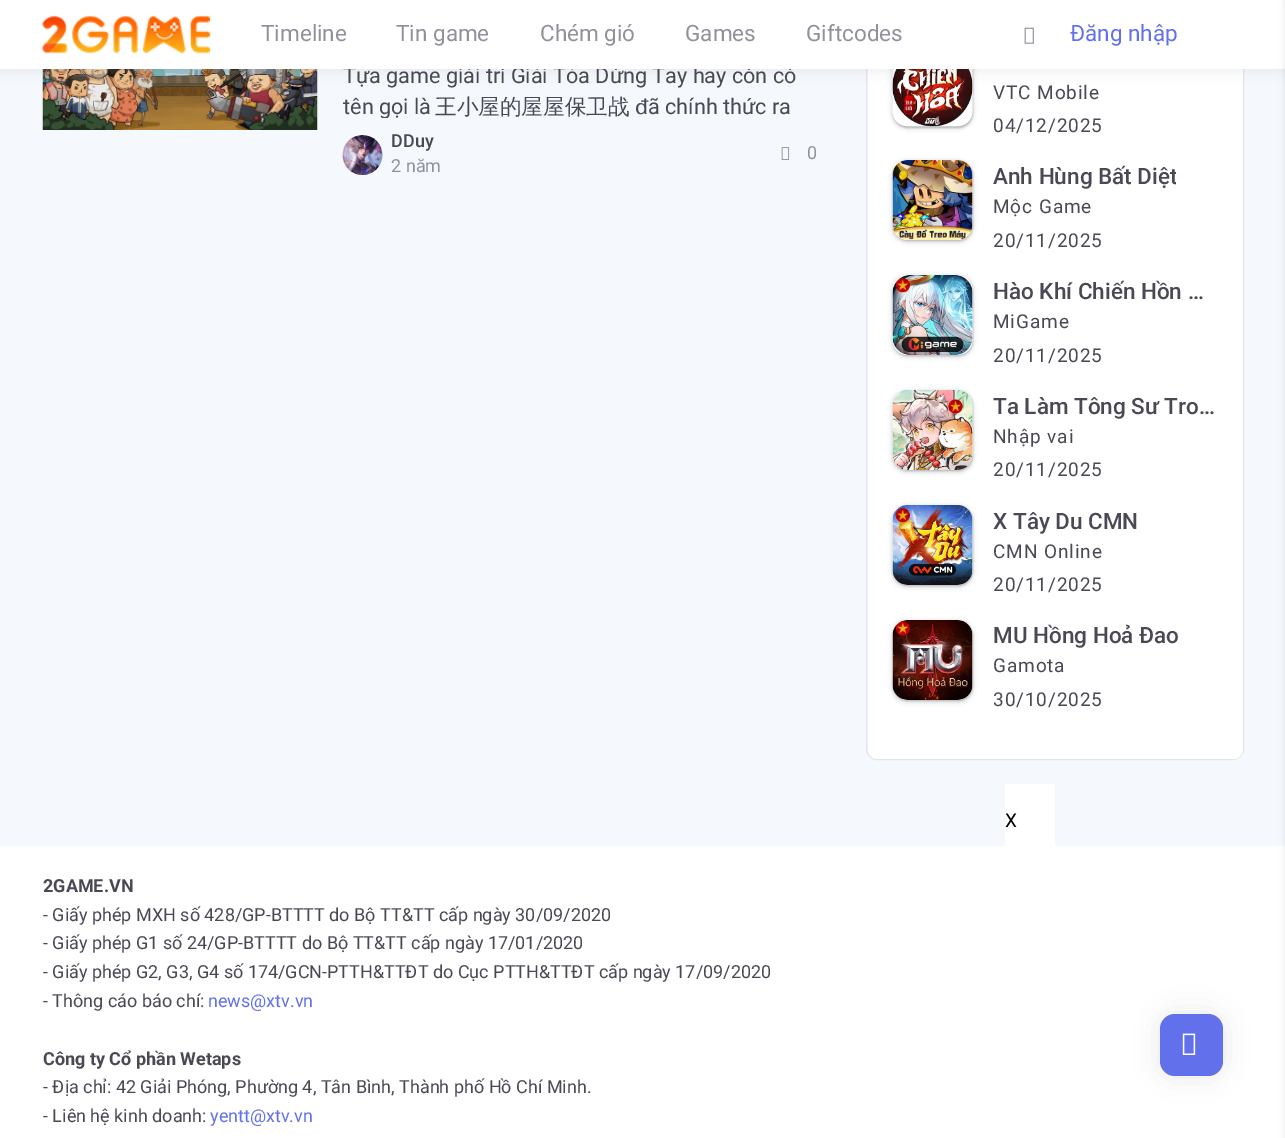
%!PS-Adobe-3.0
%%BoundingBox: 0 0 1285 1138
%%LanguageLevel: 3
%%Pages: 1
%%EndComments
%%BeginProlog
/m { moveto } bind def
/f { fill } bind def
/S { stroke } bind def
/q { gsave } bind def
/Q { grestore } bind def
/fn { [ exch dup neg 0 0 3 -1 roll 0 0 ] selectfont } def
/tx { moveto show } def
/bx { rectfill } def
/al { dup .setfillconstantalpha .setstrokeconstantalpha } def
/rr { 5 dict begin { /r /h /w /y /x } { exch def } forall
  x r add y moveto x w add y 2 copy h add r arct x w add y h add x 1 index r arct
  x y h add x y r arct x y 2 copy exch w add exch r arct closepath end } def
/sh { 12 dict begin { /a /b /q /h /w /y /x } { exch def } forall gsave /was 0 def
  9 -2 -9 { dup b mul 4 div /e exch def 1 sub .425 mul 2.718 exch exp 1 add a .99 .min exch div /now exch def
    1 1 now sub 1 was sub div sub al /was now def
    w h .min e 2 mul add 0 gt { x e sub y e sub w e 2 mul add h e 2 mul add
      q e add b .6 mul add w h .min 2 div e add .min 0 .max rr fill } if } for grestore end } def
/im { 5 dict begin { /h /w /y /x /name } { exch def } forall
  gsave x y translate w h scale
  w h 8 [w 0 0 h 0 0] name (r) file false 3 colorimage grestore end } def
%%EndProlog
%%BeginSetup
<< /PageSize [1285 1138] /PageUsesTransparency true >> setpagedevice
%%EndSetup
%%Page: 1 1
0 .pushpdf14devicefilter
0 1138 translate 1 -1 scale
4 setmiterlimit
0.961 0.973 0.988 setrgbcolor
0 0 1285 1138 bx
(image2.raw) 42 69 276 61 im
0.882 0.898 0.922 setrgbcolor
866.5 -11.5 377 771 10.5 rr S
1 setgray
868 -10 375 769 10 rr f
0.235 0.251 0.263 setrgbcolor
891 46 83 83 16 2 0.15 sh
893 48 80 80 15 1 0.3 sh
(image5.raw) 892 69 81 58 im
0.275 0.302 0.341 setrgbcolor
0 3 1285 68 0 6 0.1 sh
/Roboto-Regular 21.6 fn
0.286 0.286 0.329 setrgbcolor
(Tựa game giải trí Giải Tỏa Dừng Tay hay còn có) 343 83 tx
1 setgray
0 0 1285 69 bx
(image0.raw) 42 15 169 39 im
/Roboto-Regular 22.5 fn
0.569 0.569 0.616 setrgbcolor
(Timeline) 261 41 tx
(Tin game) 396 41 tx
(Chém gió) 540 41 tx
(Games) 685 41 tx
(Giftcodes) 806 41 tx
(image1.raw) 1024 27 10 17 im
0.384 0.443 0.922 setrgbcolor
(Đăng nhập) 1070 41 tx
1 setgray
0 846 1285 292 bx
0 setgray
1285 0 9 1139 0 3 0.1 sh
q
318 61 512 57 rectclip
/Roboto-Regular 21.6 fn
0.286 0.286 0.329 setrgbcolor
(tên gọi là) 343 114 tx
Q
/WenQuanYiZenHei-Medium 21.6 fn
0.286 0.286 0.329 setrgbcolor
(王小屋的屋屋保卫战) 435 114 tx
(đ) 635 114 tx
/Roboto-Regular 21.6 fn
(ã chính thức ra) 648 114 tx
(image3.raw) 342 135 41 40 im
/Roboto-Medium 18 fn
(DDuy) 391 147 tx
/Roboto-Regular 18 fn
0.569 0.569 0.616 setrgbcolor
(2 năm) 391 172 tx
(image4.raw) 781 147 9 13 im
(0) 807 159 tx
/Roboto-Regular 19 fn
0.286 0.286 0.329 setrgbcolor
993 99 m 0.9 0 (VTC Mobile) ashow
993 132 m 0.9 0 (04/12/2025) ashow
0.235 0.251 0.263 setrgbcolor
891 160 83 83 16 2 0.15 sh
893 161 80 80 15 1 0.3 sh
(image6.raw) 892 160 81 80 im
q
993 160 183 33 rectclip
/Roboto-Medium 22.5 fn
0.286 0.286 0.329 setrgbcolor
(Anh Hùng Bất Diệt) 993 184 tx
Q
0.286 0.286 0.329 setrgbcolor
993 213 m 0.9 0 (Mộc Game) ashow
993 247 m 0.9 0 (20/11/2025) ashow
0.235 0.251 0.263 setrgbcolor
891 275 83 83 16 2 0.15 sh
893 276 80 80 15 1 0.3 sh
(image7.raw) 892 275 81 80 im
/Roboto-Medium 22.5 fn
0.286 0.286 0.329 setrgbcolor
(Hào Khí Chiến Hồn …) 993 299 tx
/Roboto-Regular 19 fn
993 328 m 0.9 0 (MiGame) ashow
993 362 m 0.9 0 (20/11/2025) ashow
0.235 0.251 0.263 setrgbcolor
891 390 83 83 16 2 0.15 sh
893 391 80 80 15 1 0.3 sh
(image8.raw) 892 390 81 80 im
/Roboto-Medium 22.5 fn
0.286 0.286 0.329 setrgbcolor
(Ta Làm Tông Sư Tro…) 993 414 tx
/Roboto-Regular 19 fn
993 443 m 0.9 0 (Nhập vai) ashow
993 476 m 0.9 0 (20/11/2025) ashow
0.235 0.251 0.263 setrgbcolor
891 505 83 83 16 2 0.15 sh
893 506 80 80 15 1 0.3 sh
(image9.raw) 892 505 81 80 im
/Roboto-Medium 22.5 fn
0.286 0.286 0.329 setrgbcolor
(X Tây Du CMN) 993 529 tx
/Roboto-Regular 19 fn
993 558 m 0.9 0 (CMN Online) ashow
993 591 m 0.9 0 (20/11/2025) ashow
0.235 0.251 0.263 setrgbcolor
891 620 83 83 16 2 0.15 sh
893 621 80 80 15 1 0.3 sh
(image10.raw) 892 620 81 80 im
/Roboto-Medium 22.5 fn
0.286 0.286 0.329 setrgbcolor
(MU Hồng Hoả Đao) 993 643 tx
/Roboto-Regular 19 fn
993 672 m 0.9 0 (Gamota) ashow
993 706 m 0.9 0 (30/10/2025) ashow
1 setgray
1005 784 50 62 bx
0 setgray
(X) 1005 827 tx
/Roboto-Bold 18 fn
0.286 0.286 0.329 setrgbcolor
(2GAME.VN) 43 892 tx
/Roboto-Regular 18 fn
(- Giấy phép MXH số 428/GP-BTTTT do Bộ TT&TT cấp ngày 30/09/2020) 43 921 tx
(- Giấy phép G1 số 24/GP-BTTTT do Bộ TT&TT cấp ngày 17/01/2020) 43 949 tx
(- Giấy phép G2, G3, G4 số 174/GCN-PTTH&TTĐT do Cục PTTH&TTĐT cấp ngày 17/09/2020) 43 978 tx
(- Thông cáo báo chí:) 43 1007 tx
0.384 0.443 0.922 setrgbcolor
(news@xtv.vn) 208 1007 tx
/Roboto-Bold 18 fn
0.286 0.286 0.329 setrgbcolor
(Công ty Cổ phần Wetaps) 43 1065 tx
/Roboto-Regular 18 fn
(- Địa chỉ: 42 Giải Phóng, Phường 4, Tân Bình, Thành phố Hồ Chí Minh.) 43 1093 tx
(- Liên hệ kinh doanh:) 43 1122 tx
0.384 0.443 0.922 setrgbcolor
(yentt@xtv.vn) 210 1122 tx
0.275 0.302 0.341 setrgbcolor
1160 1014 63 62 15 12.5 0.15 sh
0.384 0.443 0.922 setrgbcolor
1160 1014 63 62 15 rr f
(image11.raw) 1182 1033 14 22 im
.poppdf14devicefilter showpage
%%EOF
